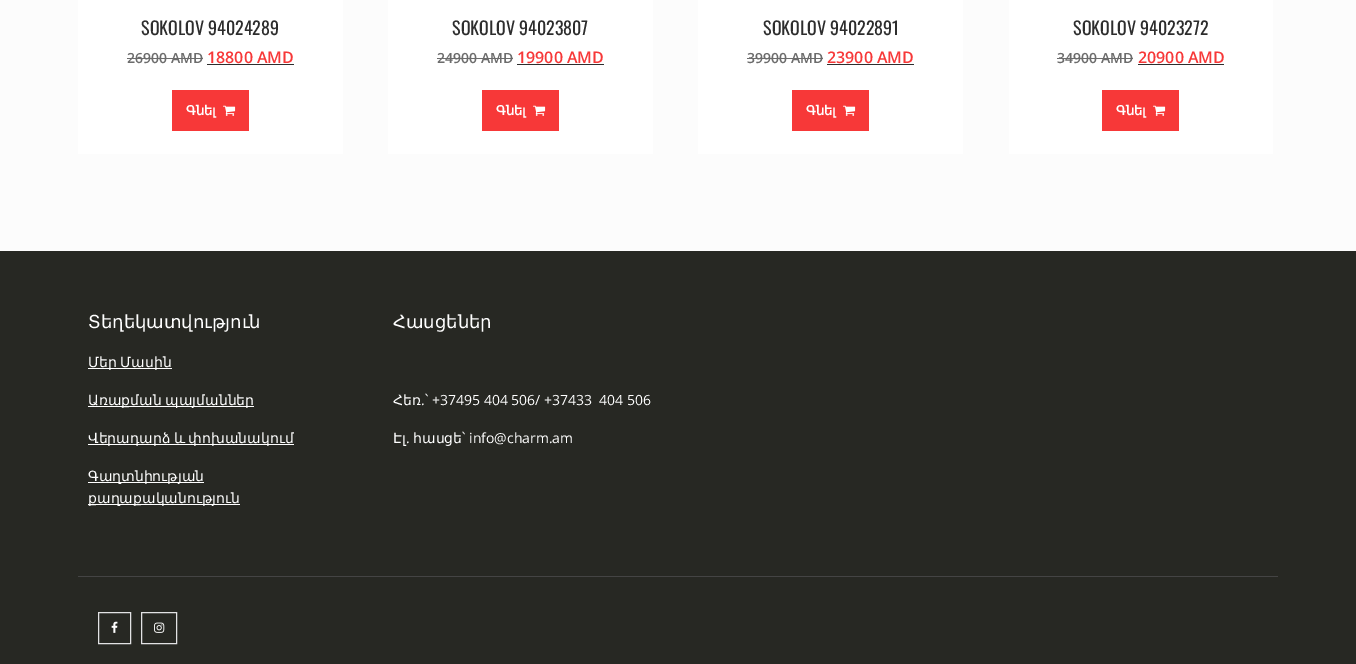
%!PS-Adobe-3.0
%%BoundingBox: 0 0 1356 664
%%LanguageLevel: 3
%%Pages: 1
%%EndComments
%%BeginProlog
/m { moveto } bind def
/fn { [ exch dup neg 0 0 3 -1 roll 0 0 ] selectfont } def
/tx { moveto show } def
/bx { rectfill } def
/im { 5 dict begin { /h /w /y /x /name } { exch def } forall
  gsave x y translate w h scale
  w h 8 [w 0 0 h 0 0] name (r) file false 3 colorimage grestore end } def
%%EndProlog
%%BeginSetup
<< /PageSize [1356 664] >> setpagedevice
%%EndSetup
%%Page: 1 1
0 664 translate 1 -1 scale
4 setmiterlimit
0.988 setgray
0 0 1356 664 bx
1 setgray
78 0 265 154 bx
/Oswald-Regular 18 fn
0.176 setgray
(SOKOLOV 94024289) 141 35 tx
/OpenSans-SemiBold 14 fn
0.424 setgray
(26900 AMD) 127 63 tx
127 58 76 1 bx
/OpenSans-SemiBold 16 fn
0.969 0.22 0.22 setrgbcolor
(18800 AMD) 207 63 tx
0.176 setgray
207 64 87 1 bx
0.969 0.22 0.22 setrgbcolor
172 90 77 41 bx
/DejaVuSans-Bold 13 fn
1 setgray
(Գնել) 186 115 tx
(image0.raw) 223 105 13 11 im
388 0 265 154 bx
/Oswald-Regular 18 fn
0.176 setgray
(SOKOLOV 94023807) 452 35 tx
/OpenSans-SemiBold 14 fn
0.424 setgray
(24900) 437 63 tx
437 58 44 1 bx
(AMD) 481 63 tx
481 58 32 1 bx
/OpenSans-SemiBold 16 fn
0.969 0.22 0.22 setrgbcolor
(19900 AMD) 517 63 tx
0.176 setgray
517 64 87 1 bx
0.969 0.22 0.22 setrgbcolor
482 90 77 41 bx
/DejaVuSans-Bold 13 fn
1 setgray
(Գնել) 496 115 tx
(image0.raw) 533 105 13 11 im
698 0 265 154 bx
/Oswald-Regular 18 fn
0.176 setgray
(SOKOLOV 94022891) 763 35 tx
/OpenSans-SemiBold 14 fn
0.424 setgray
(39900) 747 63 tx
747 58 44 1 bx
(AMD) 791 63 tx
791 58 32 1 bx
/OpenSans-SemiBold 16 fn
0.969 0.22 0.22 setrgbcolor
(23900 AMD) 827 63 tx
0.176 setgray
827 64 87 1 bx
0.969 0.22 0.22 setrgbcolor
792 90 77 41 bx
/DejaVuSans-Bold 13 fn
1 setgray
(Գնել) 806 115 tx
(image0.raw) 843 105 13 11 im
1009 0 264 154 bx
/Oswald-Regular 18 fn
0.176 setgray
(SOKOLOV 94023272) 1073 35 tx
/OpenSans-SemiBold 14 fn
0.424 setgray
(34900) 1057 63 tx
1057 58 44 1 bx
(AMD) 1101 63 tx
1101 58 32 1 bx
/OpenSans-SemiBold 16 fn
0.969 0.22 0.22 setrgbcolor
(20900 AMD) 1138 63 tx
0.176 setgray
1138 64 86 1 bx
0.969 0.22 0.22 setrgbcolor
1102 90 77 41 bx
/DejaVuSans-Bold 13 fn
1 setgray
(Գնել) 1116 115 tx
(image0.raw) 1153 105 13 11 im
0.153 0.157 0.137 setrgbcolor
0 251 1356 413 bx
0.267 setgray
78 576 1200 1 bx
/DejaVuSans-Regular 18 fn
1 setgray
(Տեղեկատվություն) 88 328 tx
88 368 84 1 bx
/DejaVuSans-Regular 14 fn
88 367 m -1 0 32 (Մեր Մասին) widthshow
88 406 166 1 bx
88 405 m -1 0 32 (Առաքման պայմաններ) widthshow
88 444 206 1 bx
88 443 m -1 0 32 (Վերադարձ և փոխանակում) widthshow
88 482 116 1 bx
(Գաղտնիության) 88 481 tx
88 504 152 1 bx
(քաղաքականություն) 88 503 tx
/DejaVuSans-Regular 18 fn
(Հասցեներ) 393 328 tx
/DejaVuSans-Regular 14 fn
(Հեռ) 393 405 tx
/OpenSans-Regular 14 fn
(.) 421 405 tx
/DejaVuSans-Regular 14 fn
(՝) 425 405 tx
/OpenSans-Regular 14 fn
(+37495 404 506/ +37433  404 506) 432 405 tx
/DejaVuSans-Regular 14 fn
(Էլ) 393 443 tx
/OpenSans-Regular 14 fn
(.) 406 443 tx
/DejaVuSans-Regular 14 fn
(հասցե՝) 413 443 tx
/OpenSans-Regular 14 fn
(info@charm.am) 469 443 tx
0.886 0.886 0.894 setrgbcolor
98.5 612.5 32 31 rectstroke
(image1.raw) 111 621 7 12 im
141.5 612.5 35 31 rectstroke
(image2.raw) 154 622 11 11 im
showpage
%%EOF
